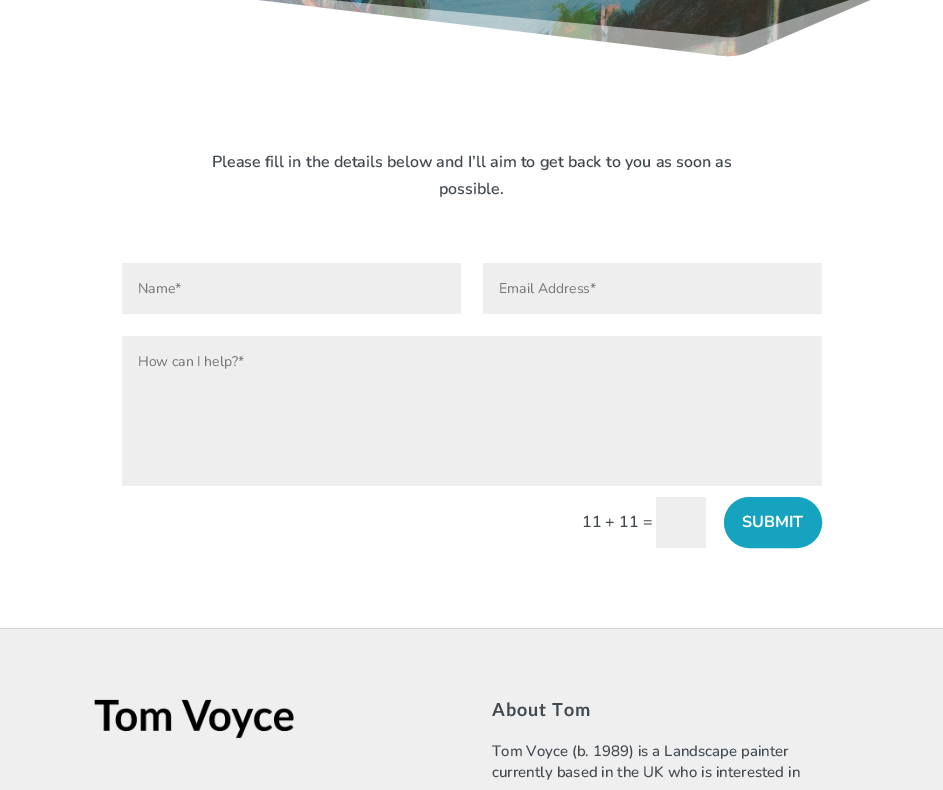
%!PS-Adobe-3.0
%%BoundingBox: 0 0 943 790
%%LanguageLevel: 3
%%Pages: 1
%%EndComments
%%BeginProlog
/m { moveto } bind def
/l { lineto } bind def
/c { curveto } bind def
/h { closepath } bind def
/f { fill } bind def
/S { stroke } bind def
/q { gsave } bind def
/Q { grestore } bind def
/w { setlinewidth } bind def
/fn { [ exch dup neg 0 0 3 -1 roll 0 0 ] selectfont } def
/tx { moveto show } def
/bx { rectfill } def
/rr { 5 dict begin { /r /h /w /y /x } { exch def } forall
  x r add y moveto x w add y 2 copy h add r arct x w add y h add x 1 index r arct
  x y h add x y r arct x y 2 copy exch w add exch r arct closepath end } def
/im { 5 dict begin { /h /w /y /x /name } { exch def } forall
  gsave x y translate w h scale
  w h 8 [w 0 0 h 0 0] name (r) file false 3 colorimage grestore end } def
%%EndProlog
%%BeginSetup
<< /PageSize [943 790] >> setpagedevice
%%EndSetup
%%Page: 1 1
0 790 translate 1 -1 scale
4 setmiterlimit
1 setgray
0 0 943 790 bx
(image0.raw) 257 0 614 57 im
943 -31 m 750 52 l 741 56 731 57 721 56 c 0 -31 l 0 69 l 943 69 l h f
/Nunito-SemiBold 16 fn
0.255 0.282 0.306 setrgbcolor
(Please fill in the details below and I’ll aim to get back to you as soon as) 212 167 tx
(possible.) 439 194 tx
0.933 setgray
122 263 339 51 bx
/Nunito-Regular 14 fn
0.459 setgray
(Name*) 138 293 tx
0.933 setgray
483 263 339 51 bx
0.459 setgray
(Email Address*) 499 293 tx
0.933 setgray
122 336 700 150 bx
0.459 setgray
(How can I help?*) 138 366 tx
/Nunito-Medium 16 fn
0.255 0.282 0.306 setrgbcolor
(11 + 11 =) 582 527 tx
0.933 setgray
656 497 50 51 bx
0.086 0.639 0.749 setrgbcolor
725 498 96 49 24.5 rr q f Q
2 w
S
/Nunito-Bold 16 fn
1 setgray
(SUBMIT) 742 527 tx
0.937 setgray
0 629 943 161 bx
0.827 setgray
0 628 943 1 bx
(image1.raw) 94 699 200 40 im
/Lato-Bold 18 fn
0.255 0.282 0.306 setrgbcolor
492 716 m 1 0 (About Tom) ashow
/Nunito-Medium 15 fn
(Tom Voyce \(b. 1989\) is a Landscape painter) 492 756 tx
(currently based in the UK who is interested in) 492 777 tx
showpage
%%EOF
